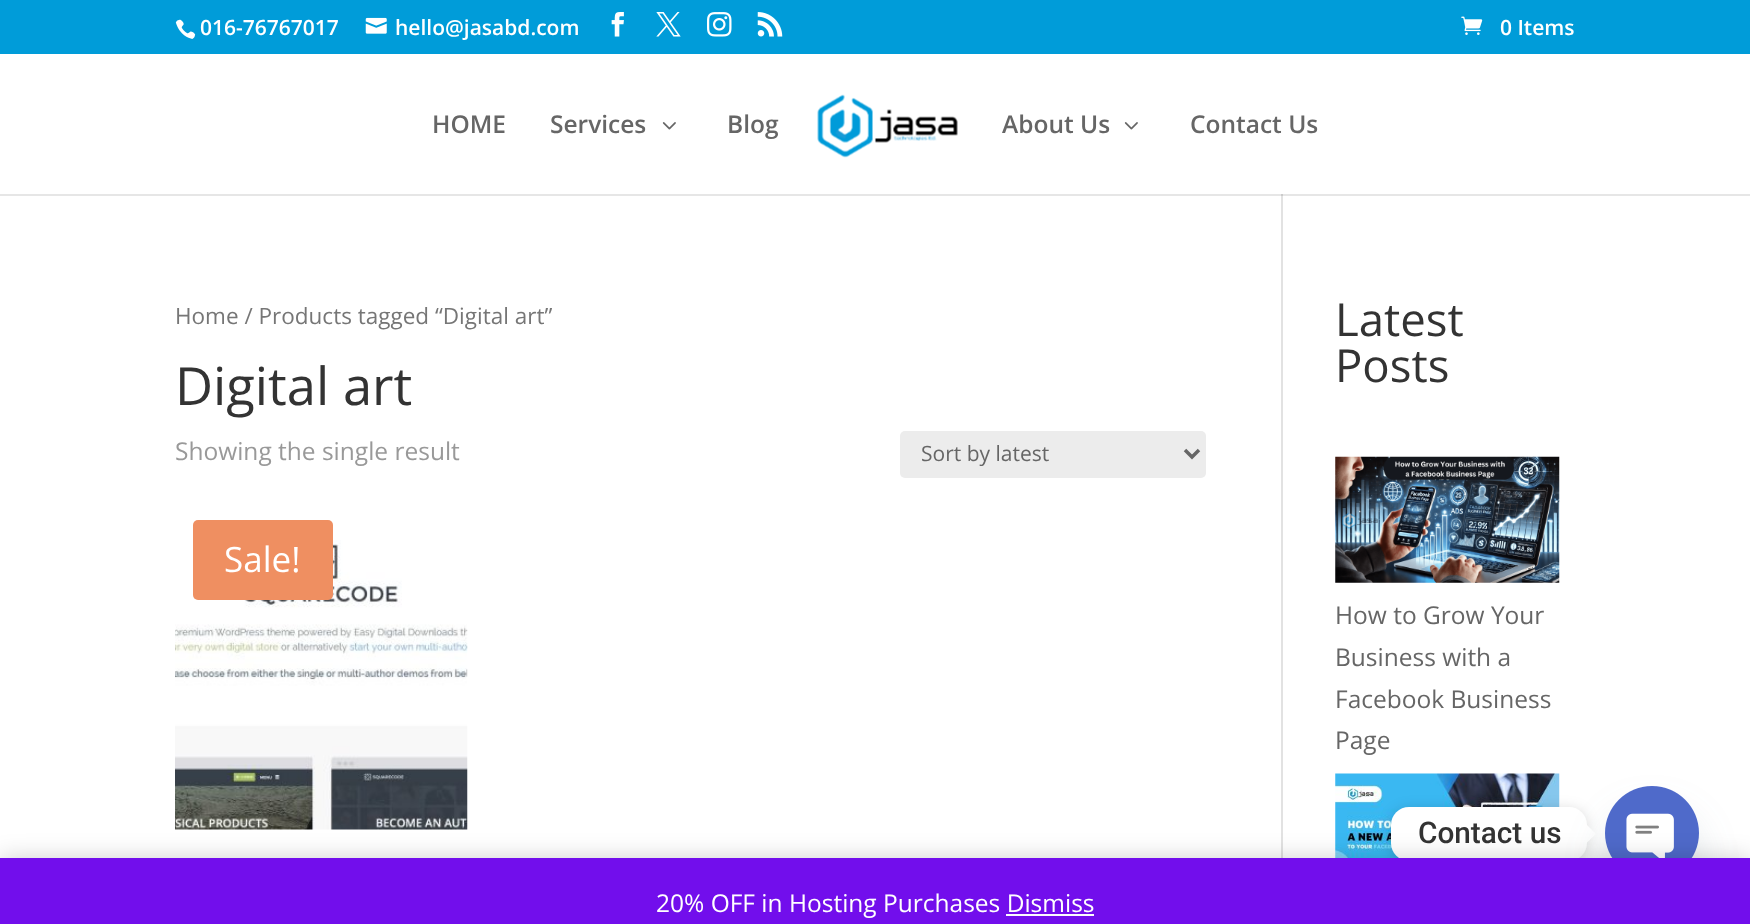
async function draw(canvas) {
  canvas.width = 1750;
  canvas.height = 924;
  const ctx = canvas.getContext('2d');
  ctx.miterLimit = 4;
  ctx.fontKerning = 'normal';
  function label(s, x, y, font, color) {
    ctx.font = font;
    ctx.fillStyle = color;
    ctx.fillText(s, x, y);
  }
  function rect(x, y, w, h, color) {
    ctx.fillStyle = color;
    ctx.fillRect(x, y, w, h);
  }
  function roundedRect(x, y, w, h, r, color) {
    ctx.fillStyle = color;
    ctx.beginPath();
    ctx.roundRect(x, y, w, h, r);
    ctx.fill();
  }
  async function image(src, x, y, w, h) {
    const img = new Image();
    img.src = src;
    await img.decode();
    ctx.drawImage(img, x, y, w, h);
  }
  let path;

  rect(0, 0, 1750, 924, '#009cd9');
  await image('assets/img1.png', 175, 19, 21, 20);
  label('016-76767017', 200, 35, '600 21px Open Sans', '#fff');
  await image('assets/img2.png', 365, 17, 22, 17);
  label('hello@jasabd.com', 395, 35, '600 21px Open Sans', '#fff');
  await image('assets/img3.png', 611, 12, 13, 25);
  await image('assets/img4.png', 656, 12, 25, 25);
  await image('assets/img5.png', 707, 12, 25, 25);
  await image('assets/img6.png', 757, 12, 26, 25);
  await image('assets/img7.png', 1461, 16, 22, 19);
  label('0 Items', 1500, 35, '600 21px Open Sans', '#fff');
  rect(0, 54, 1750, 140, '#fff');
  label('HOME', 432, 133, '600 24.5px Open Sans', '#666');
  label('Services', 550, 133, '600 24.5px Open Sans', '#666');
  await image('assets/img8.png', 662, 122, 14, 8);
  label('Blog', 727, 133, '600 24.5px Open Sans', '#666');
  await image('assets/img9.png', 817, 94, 141, 64);
  label('About Us', 1002, 133, '600 24.5px Open Sans', '#666');
  await image('assets/img8.png', 1124, 122, 14, 8);
  label('Contact Us', 1190, 133, '600 24.5px Open Sans', '#666');
  rect(0, 196, 1750, 662, '#fff');
  rect(0, 194, 1750, 2, '#e6e6e6');
  rect(1281, 194, 2, 664, '#e2e2e2');
  rect(1281, 194, 2, 2, '#cbcbcb');
  label('Home / Products tagged “Digital art”', 175, 324, '22.5px Open Sans', '#767676');
  label('Digital art', 175, 405, '52.5px Open Sans', '#333');
  label('Showing the single result', 175, 460, '24.5px Open Sans', '#999');
  roundedRect(900, 431, 306, 47, 5, '#ececec');
  path = new Path2D('M1185 450L1192 457L1199 450');
  ctx.strokeStyle = '#666';
  ctx.lineWidth = 3.5;
  ctx.stroke(path);
  label('Sort by latest', 921, 461, '21px Open Sans', '#666');
  await image('assets/img10.png', 175, 540, 293, 290);
  roundedRect(193, 520, 140, 80, 5, '#ef8f61');
  label('Sale!', 224, 572, '35px Open Sans', '#fff');
  label('Latest', 1335, 336, '45.5px Open Sans', '#333');
  label('Posts', 1335, 382, '45.5px Open Sans', '#333');
  await image('assets/img11.png', 1335, 456, 225, 127);
  label('How to Grow Your', 1335, 624, '24.5px Open Sans', '#666');
  label('Business with a', 1335, 666, '24.5px Open Sans', '#666');
  label('Facebook Business', 1335, 708, '24.5px Open Sans', '#666');
  label('Page', 1335, 749, '24.5px Open Sans', '#666');
  await image('assets/img12.png', 1335, 773, 225, 85);
  ctx.fillStyle = '#00000026';
  ctx.filter = 'blur(7px)';
  ctx.beginPath();
  ctx.roundRect(1391, 809, 196, 54, 18);
  ctx.fill();
  ctx.filter = 'none';
  roundedRect(1391, 807, 196, 54, 18, '#fff');
  label('Contact us', 1418, 843, '500 29.75px Roboto', '#333');
  ctx.fillStyle = '#fff';
  path = new Path2D('M1587 842.5V825L1596 834Z');
  ctx.fill(path);
  ctx.fillStyle = '#49687e29';
  ctx.filter = 'blur(21px)';
  ctx.beginPath();
  ctx.roundRect(1605, 814, 94, 94, 47);
  ctx.fill();
  ctx.filter = 'none';
  await image('assets/img13.png', 1605, 786, 94, 72);
  ctx.fillStyle = '#00000033';
  ctx.filter = 'blur(12px)';
  ctx.beginPath();
  ctx.rect(0, 859, 1750, 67);
  ctx.fill();
  ctx.filter = 'none';
  rect(0, 858, 1750, 66, '#720eec');
  label('20% OFF in Hosting Purchases Dismiss', 656, 912, '24.5px Open Sans', '#fff');
  rect(1006, 914, 88, 2, '#fcfbfe');
}

draw(document.querySelector('canvas'));
